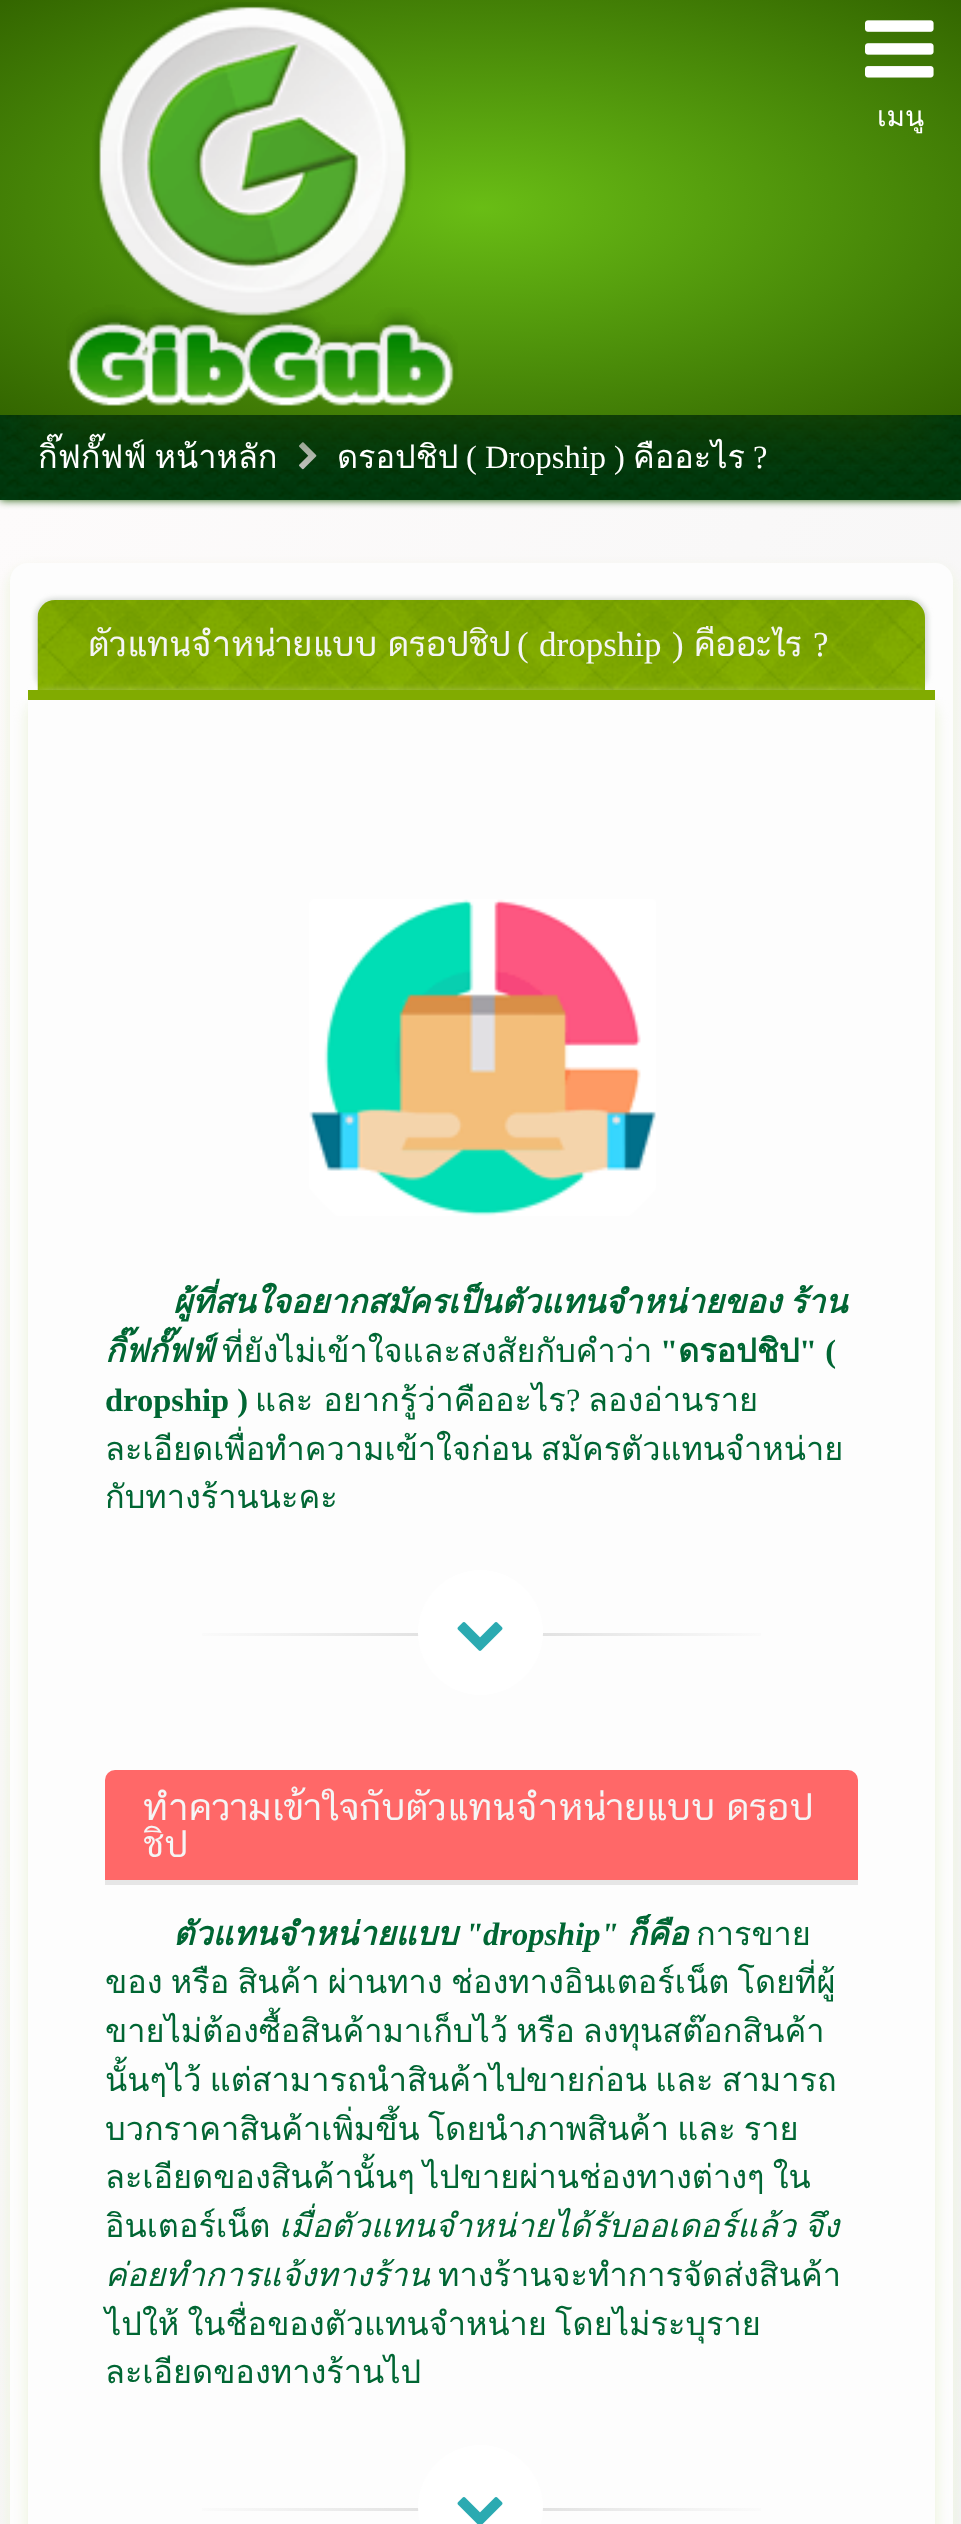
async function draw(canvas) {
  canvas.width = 961;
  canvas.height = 2524;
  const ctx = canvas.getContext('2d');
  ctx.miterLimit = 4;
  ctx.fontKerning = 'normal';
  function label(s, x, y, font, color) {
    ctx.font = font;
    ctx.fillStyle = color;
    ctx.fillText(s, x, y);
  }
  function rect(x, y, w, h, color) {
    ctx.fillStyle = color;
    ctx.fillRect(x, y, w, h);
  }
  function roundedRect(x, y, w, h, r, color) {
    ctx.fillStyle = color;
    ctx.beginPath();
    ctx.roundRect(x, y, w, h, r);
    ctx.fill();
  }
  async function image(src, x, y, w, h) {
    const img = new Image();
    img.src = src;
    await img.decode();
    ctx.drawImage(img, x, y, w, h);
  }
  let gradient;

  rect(0, 0, 961, 2524, '#fff');
  gradient = ctx.createLinearGradient(-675, 1670, 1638, 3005);
  gradient.addColorStop(0, '#fdfbfb');
  gradient.addColorStop(0.5, '#f5f5f5');
  gradient.addColorStop(1, '#ebedee');
  ctx.fillStyle = gradient;
  ctx.fillRect(0, 500, 961, 2024);
  ctx.fillStyle = '#185801';
  ctx.filter = 'blur(4px)';
  ctx.beginPath();
  ctx.rect(0, 415, 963, 85);
  ctx.fill();
  ctx.filter = 'none';
  await image('assets/img3.png', 0, 415, 961, 85);
  await image('assets/img4.png', 299, 442, 18, 28);
  ctx.fillStyle = '#1a4501';
  ctx.filter = 'blur(34px)';
  ctx.beginPath();
  ctx.rect(33, 73, 897, 350);
  ctx.fill();
  ctx.filter = 'none';
  gradient = ctx.createRadialGradient(481, 483.44, 0, 481, 483.44, 681);
  gradient.addColorStop(0, '#69bd15');
  gradient.addColorStop(1, '#360');
  ctx.fillStyle = gradient;
  ctx.beginPath();
  ctx.rect(0, 0, 961, 415);
  ctx.save();
  ctx.clip();
  ctx.scale(1, 293 / 681);
  ctx.fillRect(0, 0, 961, 5867);
  ctx.restore();
  await image('assets/img1.png', 66, 2, 392, 404);
  await image('assets/img2.png', 865, 20, 69, 58);
  label('เมนู', 877, 126, '28px Loma', '#fff');
  ctx.wordSpacing = '-2.75px';
  label('กิ๊ฟกั๊ฟฟ์ หน้าหลัก', 38, 468, '32.5px Loma', '#fff');
  ctx.wordSpacing = '0px';
  label('ดรอปชิป', 337, 468, '32.5px Loma', '#fff');
  label('( Dropship )', 466, 468, '32.5px Liberation Serif', '#fff');
  label('คืออะไร', 633, 468, '32.5px Loma', '#fff');
  label('?', 753, 468, '32.5px Liberation Serif', '#fff');
  ctx.fillStyle = '#eff5e2';
  ctx.filter = 'blur(6px)';
  ctx.beginPath();
  ctx.roundRect(8, 568, 947, 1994, 20);
  ctx.fill();
  ctx.filter = 'none';
  roundedRect(10, 563, 943, 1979, 18, '#fdfdfd');
  ctx.fillStyle = '#d7dbd7';
  ctx.filter = 'blur(2.5px)';
  ctx.beginPath();
  ctx.roundRect(35, 598, 893, 95, 20);
  ctx.fill();
  ctx.filter = 'none';
  await image('assets/img5.png', 37, 600, 888, 90);
  label('ตัวแทนจำหน่ายแบบ ดรอปชิป', 88, 656, '35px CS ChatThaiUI', '#f5f5f5');
  label('(', 517, 656, '35px Liberation Serif', '#f5f5f5');
  label('dropship', 539, 656, '35px Liberation Serif', '#f5f5f5');
  label(')', 672, 656, '35px Liberation Serif', '#f5f5f5');
  label('คืออะไร', 694, 656, '35px CS ChatThaiUI', '#f5f5f5');
  label('?', 813, 656, '35px Liberation Serif', '#f5f5f5');
  ctx.fillStyle = '#eff5e2';
  ctx.filter = 'blur(6px)';
  ctx.beginPath();
  ctx.roundRect(25, 695, 913, 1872, 25);
  ctx.fill();
  ctx.filter = 'none';
  rect(28, 700, 907, 1824, '#fdfdfd');
  rect(28, 690, 907, 10, '#81ab00');
  await image('assets/img6.png', 309, 899, 347, 317);
  ctx.wordSpacing = '-2.75px';
  label('ผู้ที่สนใจอยากสมัครเป็นตัวแทนจำหน่ายของ ร้าน', 173, 1313, 'italic bold 32.5px Loma', '#063');
  ctx.wordSpacing = '0px';
  label('กิ๊ฟกั๊ฟฟ์', 105, 1362, 'italic bold 32.5px Loma', '#063');
  label('ที่ยังไม่เข้าใจและสงสัยกับคำว่า', 222, 1362, '32.5px Loma', '#063');
  label('"', 660, 1362, 'bold 32.5px Liberation Serif', '#063');
  label('ดรอปชิป', 678, 1362, 'bold 32.5px Loma', '#063');
  label('" (', 799, 1362, 'bold 32.5px Liberation Serif', '#063');
  label('dropship )', 105, 1411, 'bold 32.5px Liberation Serif', '#063');
  ctx.wordSpacing = '-1px';
  label('และ อยากรู้ว่าคืออะไร', 255, 1411, '32.5px Loma', '#063');
  ctx.wordSpacing = '0px';
  label('?', 566, 1411, '32.5px Liberation Serif', '#063');
  label('ลองอ่านราย', 588, 1411, '32.5px Loma', '#063');
  ctx.wordSpacing = '-2.75px';
  label('ละเอียดเพื่อทำความเข้าใจก่อน สมัครตัวแทนจำหน่าย', 105, 1460, '32.5px Loma', '#063');
  ctx.wordSpacing = '0px';
  label('กับทางร้านนะคะ', 105, 1508, '32.5px Loma', '#063');
  gradient = ctx.createLinearGradient(180, 1634, 783, 1634);
  gradient.addColorStop(0, '#fdfdfd');
  gradient.addColorStop(0.5, '#dbdbdb');
  gradient.addColorStop(1, '#fdfdfd');
  ctx.fillStyle = gradient;
  ctx.fillRect(202, 1633, 559, 3);
  ctx.fillStyle = '#fff';
  ctx.beginPath();
  ctx.arc(480.5, 1632.5, 62.5, 0, 2 * Math.PI);
  ctx.fill();
  await image('assets/img7.png', 457, 1622, 46, 29);
  ctx.fillStyle = '#ff6868';
  ctx.beginPath();
  ctx.roundRect(105, 1770, 753, 115, [10, 10, 0, 0]);
  ctx.fill();
  rect(105, 1880, 753, 5, '#e6e6e6');
  label('ทำความเข้าใจกับตัวแทนจำหน่ายแบบ ดรอป', 143, 1820, '37.5px CS ChatThaiUI', '#f5f5f5');
  label('ชิป', 143, 1857, '37.5px CS ChatThaiUI', '#f5f5f5');
  label('ตัวแทนจำหน่ายแบบ', 173, 1945, 'italic bold 32.5px Loma', '#063');
  label('"dropship"', 465, 1945, 'italic bold 32.5px Liberation Serif', '#063');
  label('ก็คือ', 627, 1945, 'italic bold 32.5px Loma', '#063');
  label('การขาย', 696, 1945, '32.5px Loma', '#063');
  ctx.wordSpacing = '-2.75px';
  label('ของ หรือ สินค้า ผ่านทาง ช่องทางอินเตอร์เน็ต โดยที่ผู้', 105, 1993, '32.5px Loma', '#063');
  label('ขายไม่ต้องซื้อสินค้ามาเก็บไว้ หรือ ลงทุนสต๊อกสินค้า', 105, 2042, '32.5px Loma', '#063');
  label('นั้นๆไว้ แต่สามารถนำสินค้าไปขายก่อน และ สามารถ', 105, 2091, '32.5px Loma', '#063');
  label('บวกราคาสินค้าเพิ่มขึ้น โดยนำภาพสินค้า และ ราย', 105, 2140, '32.5px Loma', '#063');
  label('ละเอียดของสินค้านั้นๆ ไปขายผ่านช่องทางต่างๆ ใน', 105, 2188, '32.5px Loma', '#063');
  ctx.wordSpacing = '0px';
  label('อินเตอร์เน็ต', 105, 2237, '32.5px Loma', '#063');
  ctx.wordSpacing = '-2.75px';
  label('เมื่อตัวแทนจำหน่ายได้รับออเดอร์แล้ว จึง', 279, 2237, 'italic 32.5px Loma', '#063');
  ctx.wordSpacing = '0px';
  label('ค่อยทำการแจ้งทางร้าน', 105, 2286, 'italic 32.5px Loma', '#063');
  label('ทางร้านจะทำการจัดส่งสินค้า', 438, 2286, '32.5px Loma', '#063');
  ctx.wordSpacing = '-2.75px';
  label('ไปให้ ในชื่อของตัวแทนจำหน่าย โดยไม่ระบุราย', 105, 2335, '32.5px Loma', '#063');
  ctx.wordSpacing = '0px';
  label('ละเอียดของทางร้านไป', 105, 2383, '32.5px Loma', '#063');
  gradient = ctx.createLinearGradient(180, 2509, 783, 2509);
  gradient.addColorStop(0, '#fdfdfd');
  gradient.addColorStop(0.5, '#dbdbdb');
  gradient.addColorStop(1, '#fdfdfd');
  ctx.fillStyle = gradient;
  ctx.fillRect(202, 2508, 559, 3);
  ctx.fillStyle = '#fff';
  ctx.beginPath();
  ctx.arc(480.5, 2507.5, 62.5, 0, 2 * Math.PI);
  ctx.fill();
  await image('assets/img8.png', 457, 2497, 46, 27);
}

draw(document.querySelector('canvas'));
